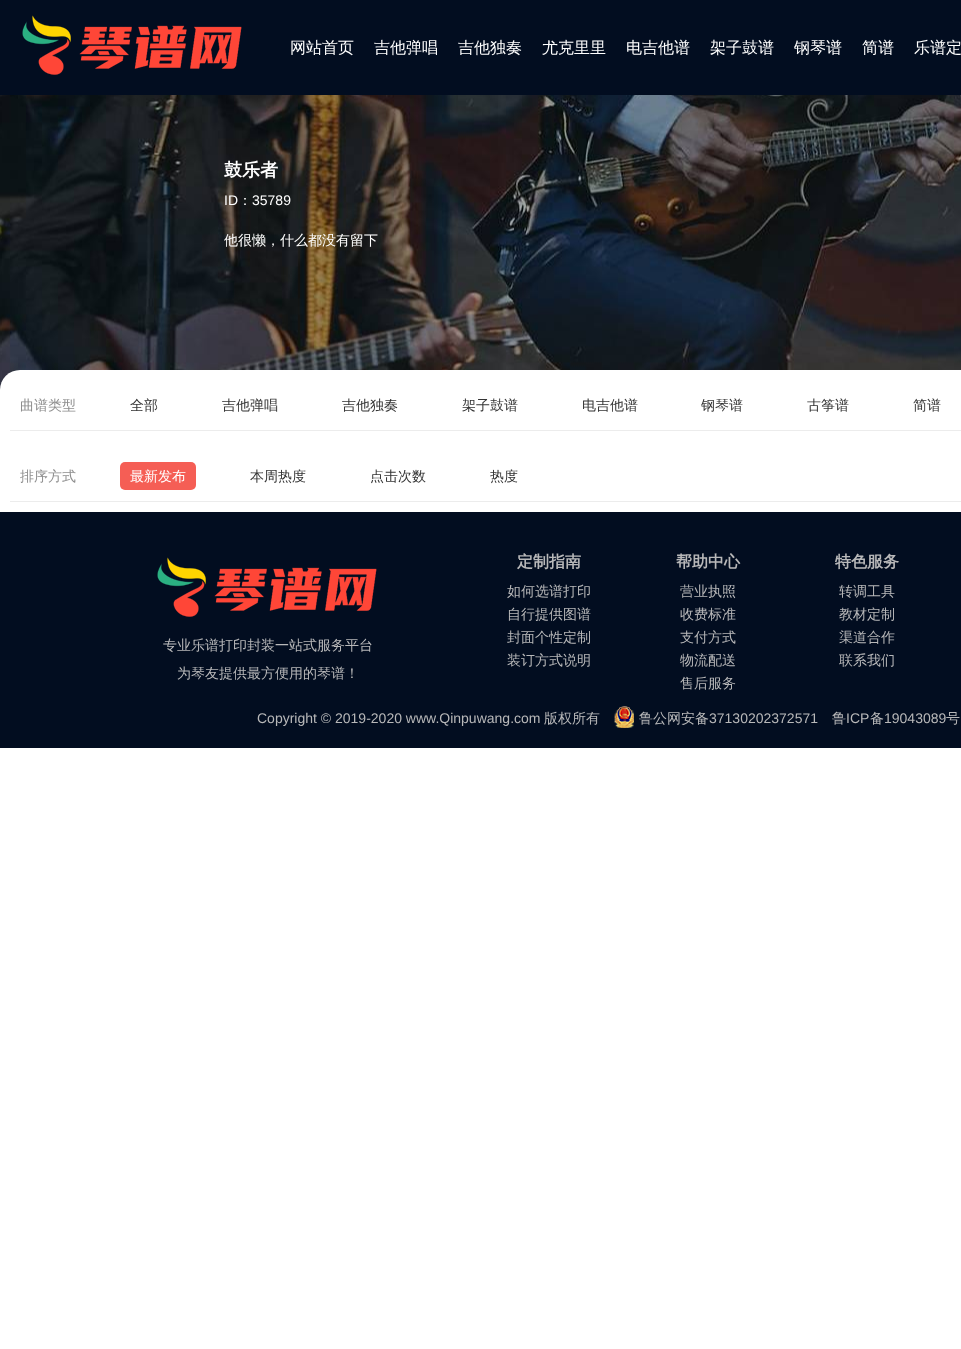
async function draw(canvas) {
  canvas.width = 961;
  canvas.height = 1349;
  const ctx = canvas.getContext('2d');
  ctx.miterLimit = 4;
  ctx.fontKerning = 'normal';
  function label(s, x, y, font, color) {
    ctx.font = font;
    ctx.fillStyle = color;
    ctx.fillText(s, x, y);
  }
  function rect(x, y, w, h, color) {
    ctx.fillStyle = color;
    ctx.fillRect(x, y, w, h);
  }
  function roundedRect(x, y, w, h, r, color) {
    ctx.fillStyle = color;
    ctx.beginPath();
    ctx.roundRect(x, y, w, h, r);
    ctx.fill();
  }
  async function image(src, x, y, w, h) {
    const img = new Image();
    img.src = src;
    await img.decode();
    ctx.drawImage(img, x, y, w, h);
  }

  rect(0, 0, 961, 1349, '#fff');
  rect(0, 0, 961, 95, '#020d20');
  await image('assets/img1.png', 22, 15, 220, 60);
  label('网站首页', 290, 53, '500 16px WenQuanYi Zen Hei', '#fff');
  label('吉他弹唱', 374, 53, '500 16px WenQuanYi Zen Hei', '#fff');
  label('吉他独奏', 458, 53, '500 16px WenQuanYi Zen Hei', '#fff');
  label('尤克里里', 542, 53, '500 16px WenQuanYi Zen Hei', '#fff');
  label('电吉他谱', 626, 53, '500 16px WenQuanYi Zen Hei', '#fff');
  label('架子鼓谱', 710, 53, '500 16px WenQuanYi Zen Hei', '#fff');
  label('钢琴谱', 794, 53, '500 16px WenQuanYi Zen Hei', '#fff');
  label('简谱', 862, 53, '500 16px WenQuanYi Zen Hei', '#fff');
  label('乐谱定', 914, 53, '500 16px WenQuanYi Zen Hei', '#fff');
  await image('assets/img2.png', 0, 95, 961, 295);
  label('鼓乐者', 224, 176, 'bold 18px WenQuanYi Zen Hei', '#fff');
  label('ID', 224, 205, '14px Liberation Sans', '#fff');
  label('：', 238, 205, '500 14px WenQuanYi Zen Hei', '#fff');
  label('35789', 252, 205, '14px Liberation Sans', '#fff');
  label('他很懒，什么都没有留下', 224, 245, '500 14px WenQuanYi Zen Hei', '#fff');
  roundedRect(0, 370, 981, 142, 20, '#fff');
  rect(10, 430, 951, 1, '#ececec');
  label('曲谱类型', 20, 410, '500 14px WenQuanYi Zen Hei', '#8e8e8e');
  label('全部', 130, 410, '500 14px WenQuanYi Zen Hei', '#333');
  label('吉他弹唱', 222, 410, '500 14px WenQuanYi Zen Hei', '#333');
  label('吉他独奏', 342, 410, '500 14px WenQuanYi Zen Hei', '#333');
  label('架子鼓谱', 462, 410, '500 14px WenQuanYi Zen Hei', '#333');
  label('电吉他谱', 582, 410, '500 14px WenQuanYi Zen Hei', '#333');
  label('钢琴谱', 701, 410, '500 14px WenQuanYi Zen Hei', '#333');
  label('古筝谱', 807, 410, '500 14px WenQuanYi Zen Hei', '#333');
  label('简谱', 913, 410, '500 14px WenQuanYi Zen Hei', '#333');
  rect(10, 501, 951, 1, '#ececec');
  label('排序方式', 20, 481, '500 14px WenQuanYi Zen Hei', '#8e8e8e');
  roundedRect(120, 462, 76, 28, 5, '#f55e55');
  label('最新发布', 130, 481, '500 14px WenQuanYi Zen Hei', '#fff');
  label('本周热度', 250, 481, '500 14px WenQuanYi Zen Hei', '#333');
  label('点击次数', 370, 481, '500 14px WenQuanYi Zen Hei', '#333');
  label('热度', 490, 481, '500 14px WenQuanYi Zen Hei', '#333');
  rect(0, 512, 961, 236, '#020d20');
  await image('assets/img1.png', 157, 557, 220, 60);
  label('专业乐谱打印封装一站式服务平台', 163, 650, '500 14px WenQuanYi Zen Hei', '#b8b8b9');
  label('为琴友提供最方便用的琴谱！', 177, 678, '500 14px WenQuanYi Zen Hei', '#b8b8b9');
  label('定制指南', 517, 567, 'bold 16px WenQuanYi Zen Hei', '#b8b8b9');
  label('如何选谱打印', 507, 596, '500 14px WenQuanYi Zen Hei', '#b8b8b9');
  label('自行提供图谱', 507, 619, '500 14px WenQuanYi Zen Hei', '#b8b8b9');
  label('封面个性定制', 507, 642, '500 14px WenQuanYi Zen Hei', '#b8b8b9');
  label('装订方式说明', 507, 665, '500 14px WenQuanYi Zen Hei', '#b8b8b9');
  label('帮助中心', 676, 567, 'bold 16px WenQuanYi Zen Hei', '#b8b8b9');
  label('营业执照', 680, 596, '500 14px WenQuanYi Zen Hei', '#b8b8b9');
  label('收费标准', 680, 619, '500 14px WenQuanYi Zen Hei', '#b8b8b9');
  label('支付方式', 680, 642, '500 14px WenQuanYi Zen Hei', '#b8b8b9');
  label('物流配送', 680, 665, '500 14px WenQuanYi Zen Hei', '#b8b8b9');
  label('售后服务', 680, 688, '500 14px WenQuanYi Zen Hei', '#b8b8b9');
  label('特色服务', 835, 567, 'bold 16px WenQuanYi Zen Hei', '#b8b8b9');
  label('转调工具', 839, 596, '500 14px WenQuanYi Zen Hei', '#b8b8b9');
  label('教材定制', 839, 619, '500 14px WenQuanYi Zen Hei', '#b8b8b9');
  label('渠道合作', 839, 642, '500 14px WenQuanYi Zen Hei', '#b8b8b9');
  label('联系我们', 839, 665, '500 14px WenQuanYi Zen Hei', '#b8b8b9');
  label('Copyright © 2019-2020 www.Qinpuwang.com', 257, 723, '14px Liberation Sans', '#b8b8b9');
  label('版权所有', 544, 723, '500 14px WenQuanYi Zen Hei', '#b8b8b9');
  await image('assets/img3.png', 614, 706, 20, 22);
  label('鲁公网安备', 639, 723, '500 14px WenQuanYi Zen Hei', '#b8b8b9');
  label('37130202372571', 709, 723, '14px Liberation Sans', '#b8b8b9');
  label('鲁', 832, 723, '500 14px WenQuanYi Zen Hei', '#b8b8b9');
  label('ICP', 846, 723, '14px Liberation Sans', '#b8b8b9');
  label('备', 870, 723, '500 14px WenQuanYi Zen Hei', '#b8b8b9');
  label('19043089', 884, 723, '14px Liberation Sans', '#b8b8b9');
  label('号', 946, 723, '500 14px WenQuanYi Zen Hei', '#b8b8b9');
}

draw(document.querySelector('canvas'));
